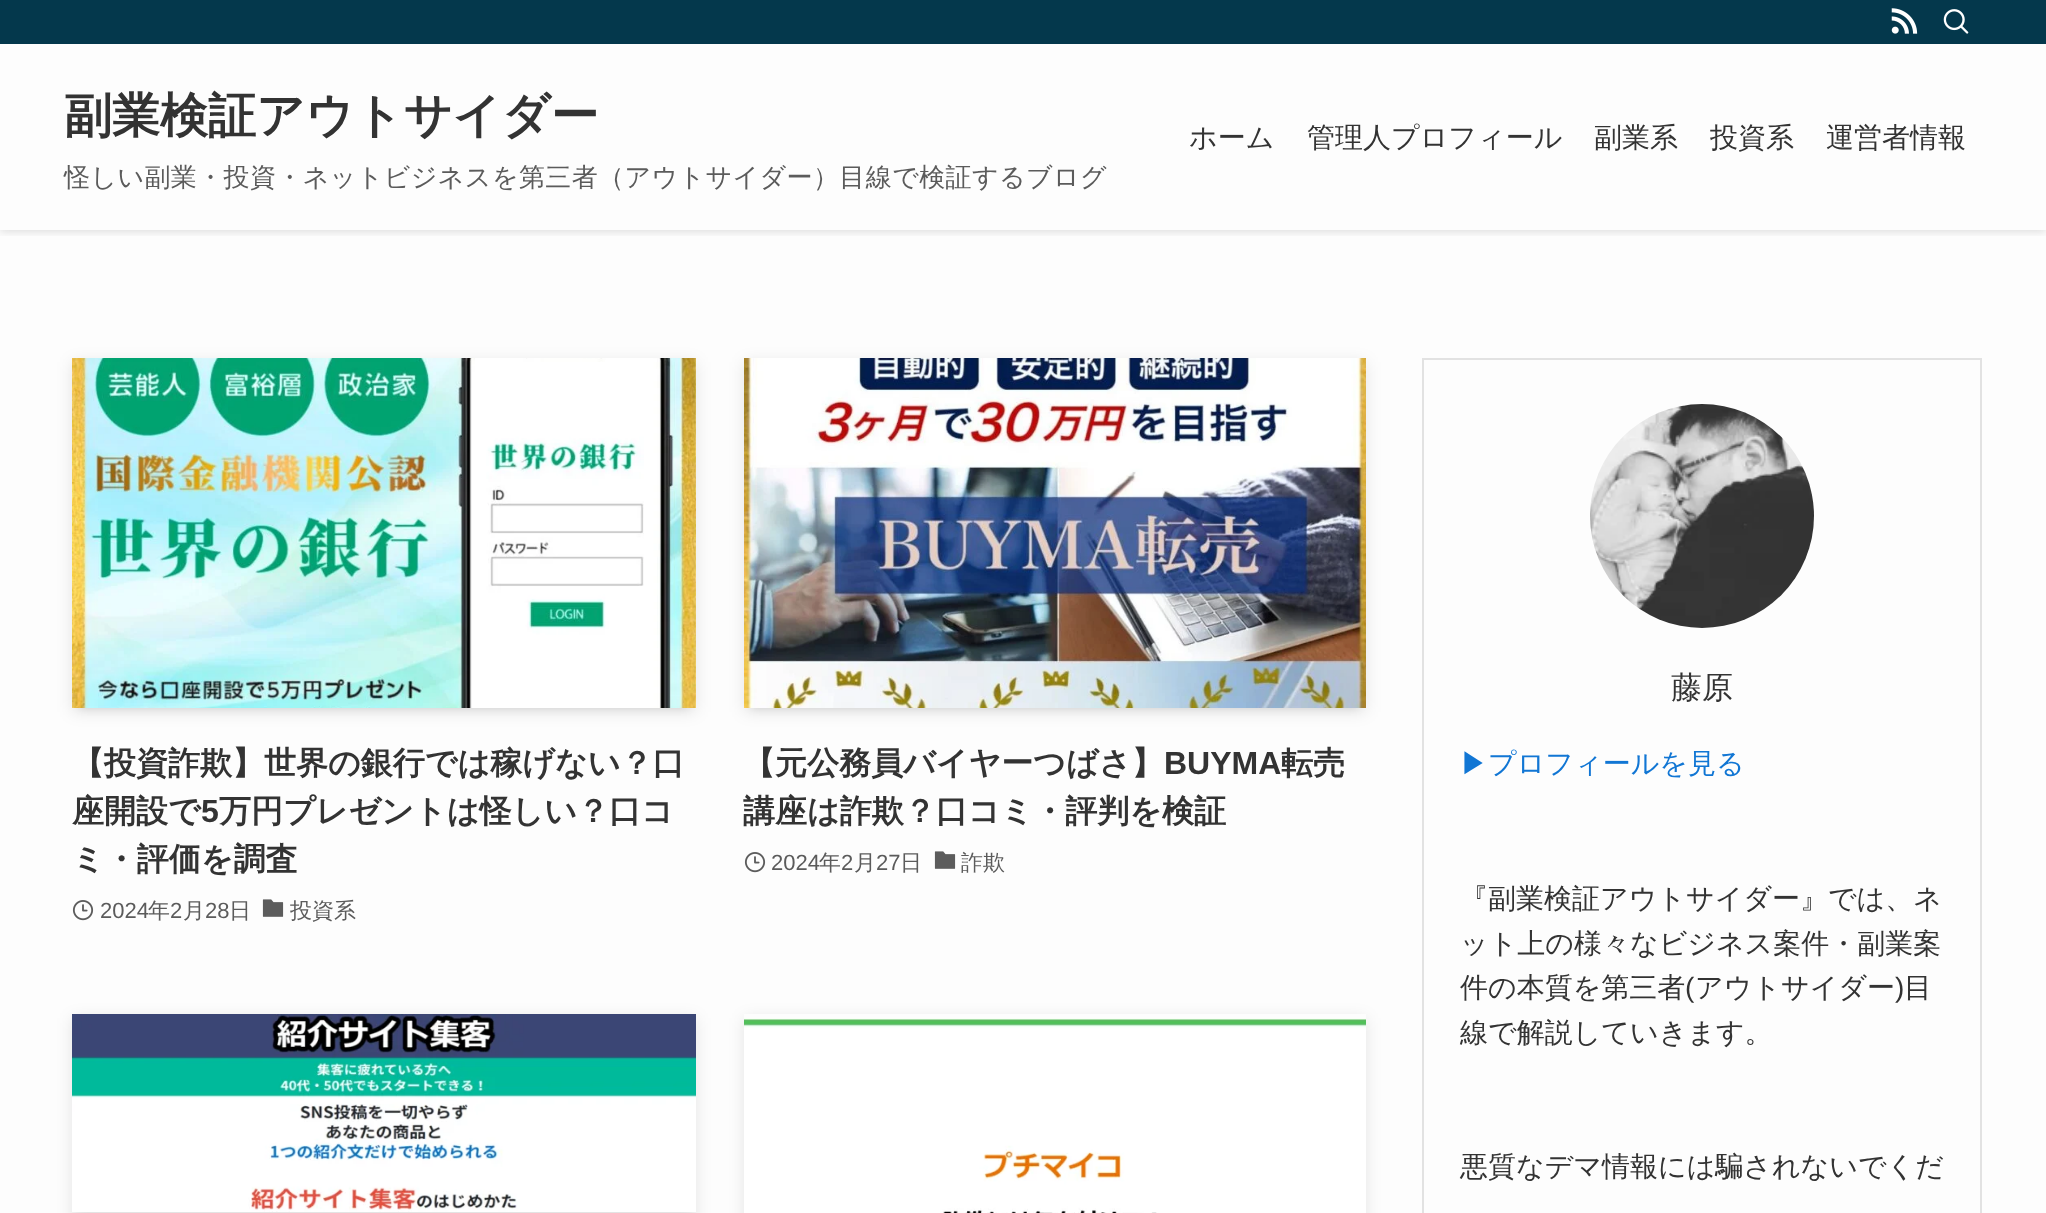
async function draw(canvas) {
  canvas.width = 2046;
  canvas.height = 1213;
  const ctx = canvas.getContext('2d');
  ctx.miterLimit = 4;
  ctx.fontKerning = 'normal';
  function label(s, x, y, font, color) {
    ctx.font = font;
    ctx.fillStyle = color;
    ctx.fillText(s, x, y);
  }
  function rect(x, y, w, h, color) {
    ctx.fillStyle = color;
    ctx.fillRect(x, y, w, h);
  }
  async function image(src, x, y, w, h) {
    const img = new Image();
    img.src = src;
    await img.decode();
    ctx.drawImage(img, x, y, w, h);
  }
  let path;

  rect(0, 0, 2046, 1213, '#fdfdfd');
  ctx.save();
  ctx.beginPath();
  ctx.rect(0, 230, 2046, 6);
  ctx.clip();
  ctx.fillStyle = '#0000001f';
  ctx.filter = 'blur(4px)';
  ctx.beginPath();
  ctx.rect(0, 2, 2046, 230);
  ctx.fill();
  ctx.filter = 'none';
  ctx.restore();
  rect(0, 0, 2046, 44, '#04384c');
  await image('assets/img1.png', 1891, 8, 27, 26);
  await image('assets/img2.png', 1943, 9, 26, 25);
  label('副業検証アウトサイダー', 64, 132, 'bold 48px WenQuanYi Zen Hei', '#333');
  ctx.letterSpacing = '0.4px';
  label('怪しい副業・投資・ネットビジネスを第三者（アウトサイダー）目線で検証するブログ', 64, 186, '500 26px WenQuanYi Zen Hei', '#5b5b5b');
  ctx.letterSpacing = '0px';
  label('ホーム', 1189, 147, '500 28px WenQuanYi Zen Hei', '#333');
  label('管理人プロフィール', 1307, 147, '500 28px WenQuanYi Zen Hei', '#333');
  label('副業系', 1594, 147, '500 28px WenQuanYi Zen Hei', '#333');
  label('投資系', 1710, 147, '500 28px WenQuanYi Zen Hei', '#333');
  label('運営者情報', 1826, 147, '500 28px WenQuanYi Zen Hei', '#333');
  ctx.fillStyle = '#0000001a';
  ctx.filter = 'blur(4px)';
  ctx.beginPath();
  ctx.rect(80, 374, 608, 334);
  ctx.fill();
  ctx.filter = 'none';
  ctx.filter = 'blur(8px)';
  ctx.beginPath();
  ctx.rect(72, 362, 624, 350);
  ctx.fill();
  ctx.filter = 'none';
  await image('assets/img3.png', 72, 358, 624, 350);
  label('【投資詐欺】世界の銀行では稼げない？口', 72, 774, 'bold 32px WenQuanYi Zen Hei', '#333');
  label('座開設で', 72, 822, 'bold 32px WenQuanYi Zen Hei', '#333');
  label('5', 201, 822, 'bold 32px Liberation Sans', '#333');
  label('万円プレゼントは怪しい？口コ', 219, 822, 'bold 32px WenQuanYi Zen Hei', '#333');
  label('ミ・評価を調査', 72, 870, 'bold 32px WenQuanYi Zen Hei', '#333');
  await image('assets/img4.png', 72, 900, 22, 21);
  label('2024', 100, 918, '22px Liberation Sans', '#5b5b5b');
  label('年', 148, 918, '500 22px WenQuanYi Zen Hei', '#5b5b5b');
  label('2', 170, 918, '22px Liberation Sans', '#5b5b5b');
  label('月', 183, 918, '500 22px WenQuanYi Zen Hei', '#5b5b5b');
  label('28', 205, 918, '22px Liberation Sans', '#5b5b5b');
  label('日', 229, 918, '500 22px WenQuanYi Zen Hei', '#5b5b5b');
  await image('assets/img5.png', 262, 899, 22, 18);
  label('投資系', 290, 918, '500 22px WenQuanYi Zen Hei', '#5b5b5b');
  ctx.fillStyle = '#0000001a';
  ctx.filter = 'blur(4px)';
  ctx.beginPath();
  ctx.rect(752, 374, 606, 334);
  ctx.fill();
  ctx.filter = 'none';
  ctx.filter = 'blur(8px)';
  ctx.beginPath();
  ctx.rect(744, 362, 622, 350);
  ctx.fill();
  ctx.filter = 'none';
  await image('assets/img6.png', 744, 358, 622, 350);
  label('【元公務員バイヤーつばさ】', 743, 774, 'bold 32px WenQuanYi Zen Hei', '#333');
  label('BUYMA', 1164, 774, 'bold 32px Liberation Sans', '#333');
  label('転売', 1281, 774, 'bold 32px WenQuanYi Zen Hei', '#333');
  label('講座は詐欺？口コミ・評判を検証', 743, 822, 'bold 32px WenQuanYi Zen Hei', '#333');
  await image('assets/img4.png', 744, 852, 22, 21);
  label('2024', 771, 870, '22px Liberation Sans', '#5b5b5b');
  label('年', 819, 870, '500 22px WenQuanYi Zen Hei', '#5b5b5b');
  label('2', 841, 870, '22px Liberation Sans', '#5b5b5b');
  label('月', 854, 870, '500 22px WenQuanYi Zen Hei', '#5b5b5b');
  label('27', 876, 870, '22px Liberation Sans', '#5b5b5b');
  label('日', 900, 870, '500 22px WenQuanYi Zen Hei', '#5b5b5b');
  await image('assets/img5.png', 934, 851, 22, 18);
  label('詐欺', 961, 870, '500 22px WenQuanYi Zen Hei', '#5b5b5b');
  ctx.fillStyle = '#0000001a';
  ctx.filter = 'blur(8px)';
  ctx.beginPath();
  ctx.rect(72, 1018, 624, 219);
  ctx.fill();
  ctx.filter = 'none';
  await image('assets/img7.png', 72, 1014, 624, 198);
  ctx.save();
  path = new Path2D('M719 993H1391V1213H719ZM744 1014H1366V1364H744Z');
  ctx.clip(path, 'evenodd');
  ctx.filter = 'blur(8px)';
  ctx.beginPath();
  ctx.rect(744, 1018, 622, 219);
  ctx.fill();
  ctx.filter = 'none';
  ctx.restore();
  await image('assets/img8.png', 744, 1018, 622, 195);
  ctx.strokeStyle = '#e2e2e2';
  ctx.lineWidth = 2;
  ctx.strokeRect(1423, 359, 558, 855);
  await image('assets/img9.png', 1590, 404, 224, 224);
  label('藤原', 1671, 698, '500 31px WenQuanYi Zen Hei', '#333');
  label('▶︎プロフィールを見る', 1460, 773, '500 28px WenQuanYi Zen Hei', '#1176d4');
  label('『副業検証アウトサイダー』では、ネ', 1460, 908, '500 28px WenQuanYi Zen Hei', '#333');
  label('ット上の様々なビジネス案件・副業案', 1460, 953, '500 28px WenQuanYi Zen Hei', '#333');
  label('件の本質を第三者', 1460, 997, '500 28px WenQuanYi Zen Hei', '#333');
  label('(', 1685, 997, '28px Liberation Sans', '#333');
  label('アウトサイダー', 1695, 997, '500 28px WenQuanYi Zen Hei', '#333');
  label(')', 1895, 997, '28px Liberation Sans', '#333');
  label('目', 1904, 997, '500 28px WenQuanYi Zen Hei', '#333');
  label('線で解説していきます。', 1460, 1042, '500 28px WenQuanYi Zen Hei', '#333');
  label('悪質なデマ情報には騙されないでくだ', 1460, 1176, '500 28px WenQuanYi Zen Hei', '#333');
}

draw(document.querySelector('canvas'));
